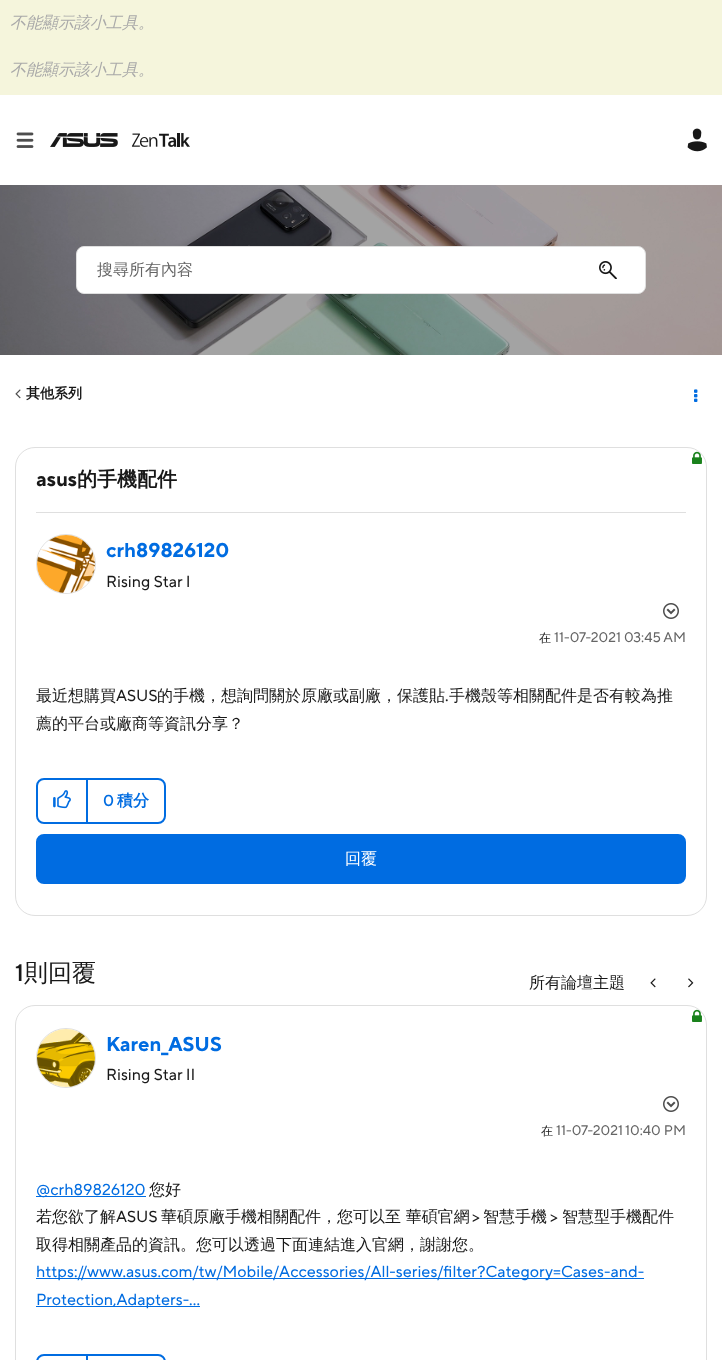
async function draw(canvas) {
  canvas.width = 722;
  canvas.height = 1360;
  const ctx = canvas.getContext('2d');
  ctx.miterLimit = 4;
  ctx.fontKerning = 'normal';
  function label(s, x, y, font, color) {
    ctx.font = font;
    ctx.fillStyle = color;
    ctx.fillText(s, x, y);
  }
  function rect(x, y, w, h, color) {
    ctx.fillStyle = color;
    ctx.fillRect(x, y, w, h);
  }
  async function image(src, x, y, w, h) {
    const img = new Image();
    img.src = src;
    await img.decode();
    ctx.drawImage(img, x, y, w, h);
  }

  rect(0, 0, 722, 1360, '#fff');
  rect(0, 0, 722, 95, '#f5f5dc');
  label('不能顯示該小工具。', 10, 28, 'italic 500 16px WenQuanYi Zen Hei', '#a9a9a9');
  label('不能顯示該小工具。', 10, 75, 'italic 500 16px WenQuanYi Zen Hei', '#a9a9a9');
  await image('assets/img1.png', 16, 132, 18, 16);
  await image('assets/img2.png', 50, 133, 140, 14);
  await image('assets/img3.png', 687, 128, 20, 24);
  await image('assets/img4.png', 0, 185, 722, 170);
  ctx.fillStyle = '#fff';
  ctx.beginPath();
  ctx.roundRect(76.5, 246.5, 569, 47, 7.5);
  ctx.fill();
  ctx.strokeStyle = '#dfdfdf';
  ctx.stroke();
  label('搜尋所有內容', 97, 275, '500 16px WenQuanYi Zen Hei', '#656565');
  await image('assets/img5.png', 599, 261, 18, 18);
  await image('assets/img6.png', 15, 389, 6, 10);
  label('其他系列', 26, 398, 'bold 14px WenQuanYi Zen Hei', '#181818');
  await image('assets/img7.png', 694, 389, 4, 13);
  ctx.beginPath();
  ctx.roundRect(15.5, 447.5, 691, 468, 19.5);
  ctx.stroke();
  await image('assets/img8.png', 692, 451, 10, 13);
  rect(36, 512, 650, 1, '#dfdfdf');
  label('asus', 36, 486, 'bold 20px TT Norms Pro', '#181818');
  label('的手機配件', 77, 486, 'bold 20px WenQuanYi Zen Hei', '#181818');
  ctx.beginPath();
  ctx.arc(66, 564, 29.5, 0, 2 * Math.PI);
  ctx.stroke();
  await image('assets/img9.png', 37, 535, 58, 58);
  label('crh89826120', 106, 557, 'bold 20px TT Norms Pro', '#006ce1');
  label('Rising Star I', 106, 587, '16px TT Norms Pro', '#181818');
  await image('assets/img10.png', 663, 603, 16, 16);
  label('在', 539, 642, '500 12px WenQuanYi Zen Hei', '#181818');
  label('11-07-2021', 554, 642, '14px TT Norms Pro', '#656565');
  label('03:45 AM', 624, 642, '14px TT Norms Pro', '#656565');
  label('最近想購買', 36, 701, '500 16px WenQuanYi Zen Hei', '#181818');
  label('ASUS', 116, 701, '16px TT Norms Pro', '#181818');
  label('的手機，想詢問關於原廠或副廠，保護貼', 157, 701, '500 16px WenQuanYi Zen Hei', '#181818');
  label('.', 445, 701, '16px TT Norms Pro', '#181818');
  label('手機殼等相關配件是否有較為推', 449, 701, '500 16px WenQuanYi Zen Hei', '#181818');
  label('薦的平台或廠商等資訊分享？', 36, 729, '500 16px WenQuanYi Zen Hei', '#181818');
  ctx.beginPath();
  ctx.roundRect(37, 779, 128, 44, 7);
  ctx.strokeStyle = '#006ce1';
  ctx.lineWidth = 2;
  ctx.stroke();
  rect(86, 780, 2, 42, '#006ce1');
  await image('assets/img11.png', 53, 790, 18, 19);
  label('0', 103, 806, '500 16px TT Norms Pro', '#006ce1');
  label('積分', 117, 806, 'bold 16px WenQuanYi Zen Hei', '#006ce1');
  ctx.beginPath();
  ctx.roundRect(37, 835, 648, 48, 7);
  ctx.fill();
  ctx.stroke();
  label('回覆', 345, 864, '500 16px WenQuanYi Zen Hei', '#fff');
  label('1', 15, 981, '500 24px TT Norms Pro', '#181818');
  label('則回覆', 24, 981, '500 24px WenQuanYi Zen Hei', '#181818');
  label('所有論壇主題', 529, 988, '500 16px WenQuanYi Zen Hei', '#181818');
  await image('assets/img12.png', 650, 978, 6, 10);
  await image('assets/img13.png', 688, 978, 6, 10);
  ctx.beginPath();
  ctx.roundRect(15.5, 1005.5, 691, 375, 19.5);
  ctx.strokeStyle = '#dfdfdf';
  ctx.lineWidth = 1;
  ctx.stroke();
  await image('assets/img8.png', 692, 1009, 10, 13);
  ctx.beginPath();
  ctx.arc(66, 1058, 29.5, 0, 2 * Math.PI);
  ctx.stroke();
  await image('assets/img14.png', 37, 1029, 58, 58);
  label('Karen_ASUS', 106, 1051, 'bold 20px TT Norms Pro', '#006ce1');
  label('Rising Star II', 106, 1080, '16px TT Norms Pro', '#181818');
  await image('assets/img10.png', 663, 1096, 16, 16);
  label('在', 541, 1135, '500 12px WenQuanYi Zen Hei', '#181818');
  label('11-07-2021', 556, 1135, '14px TT Norms Pro', '#656565');
  label('10:40 PM', 625, 1135, '14px TT Norms Pro', '#656565');
  rect(36, 1196, 110, 1, '#006ce1');
  label('@crh89826120', 36, 1195, '16px TT Norms Pro', '#006ce1');
  label('您好', 149, 1195, '500 16px WenQuanYi Zen Hei', '#181818');
  label('若您欲了解', 36, 1222, '500 16px WenQuanYi Zen Hei', '#181818');
  label('ASUS', 116, 1222, '16px TT Norms Pro', '#181818');
  label('華碩原廠手機相關配件，您可以至 華碩官網', 161, 1222, '500 16px WenQuanYi Zen Hei', '#181818');
  label('>', 472, 1222, '16px TT Norms Pro', '#181818');
  label('智慧手機', 483, 1222, '500 16px WenQuanYi Zen Hei', '#181818');
  label('>', 550, 1222, '16px TT Norms Pro', '#181818');
  label('智慧型手機配件', 562, 1222, '500 16px WenQuanYi Zen Hei', '#181818');
  label('取得相關產品的資訊。您可以透過下面連結進入官網，謝謝您。', 36, 1250, '500 16px WenQuanYi Zen Hei', '#181818');
  rect(36, 1278, 608, 1, '#006ce1');
  label('https://www.asus.com/tw/Mobile/Accessories/All-series/filter?Category=Cases-and-', 36, 1277, '16px TT Norms Pro', '#006ce1');
  rect(36, 1306, 164, 1, '#006ce1');
  label('Protection,Adapters-...', 36, 1305, '16px TT Norms Pro', '#006ce1');
  ctx.beginPath();
  ctx.roundRect(37, 1355, 128, 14, 7);
  ctx.strokeStyle = '#006ce1';
  ctx.lineWidth = 2;
  ctx.stroke();
  rect(86, 1356, 2, 4, '#006ce1');
}

draw(document.querySelector('canvas'));
